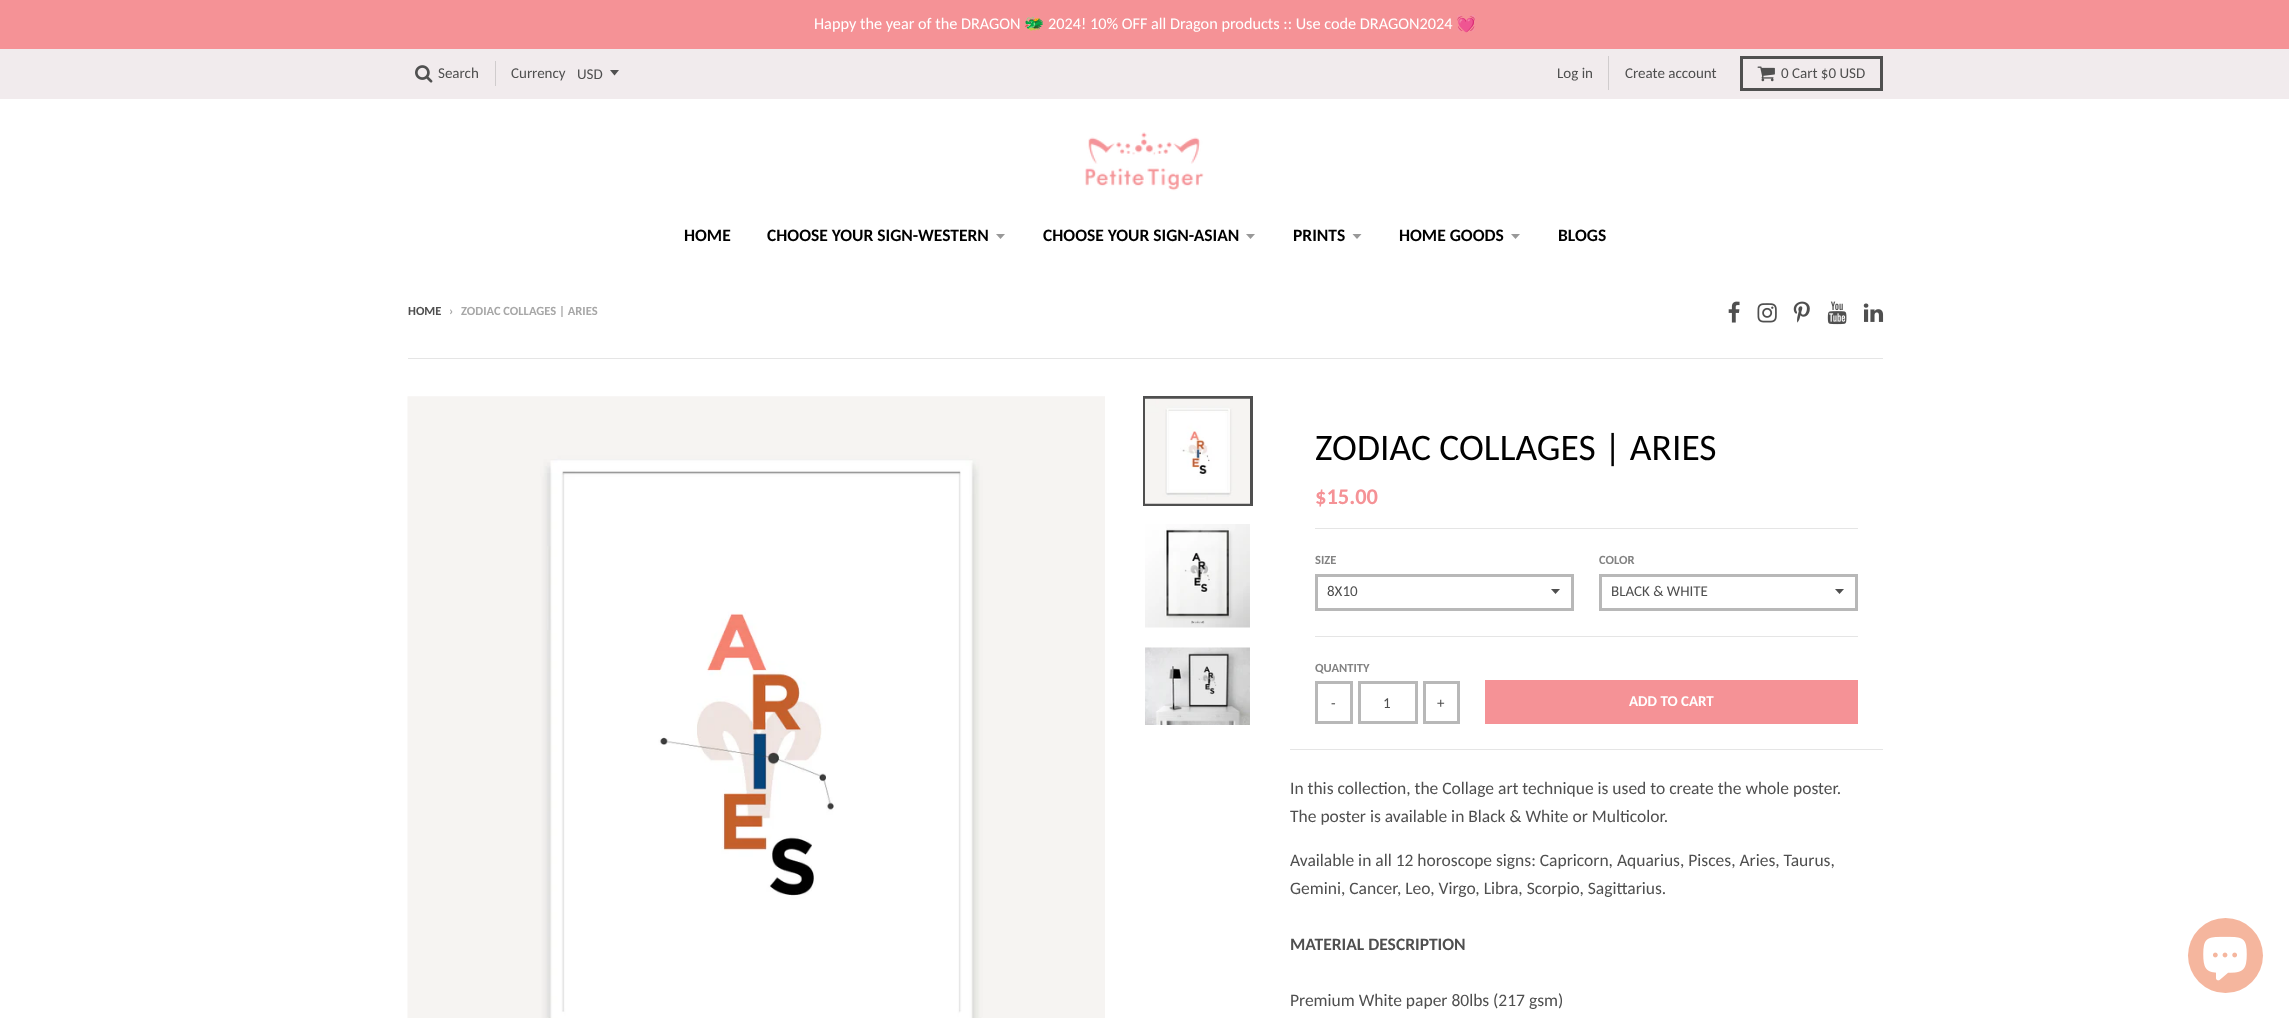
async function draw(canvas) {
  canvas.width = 2289;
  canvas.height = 1018;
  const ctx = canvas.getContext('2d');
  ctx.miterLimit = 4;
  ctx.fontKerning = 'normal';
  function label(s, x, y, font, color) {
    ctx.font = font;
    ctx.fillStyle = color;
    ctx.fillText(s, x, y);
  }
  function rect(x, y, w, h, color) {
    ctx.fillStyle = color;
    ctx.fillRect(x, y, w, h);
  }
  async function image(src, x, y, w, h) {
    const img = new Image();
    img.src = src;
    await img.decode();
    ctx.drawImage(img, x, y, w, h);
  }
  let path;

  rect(0, 0, 2289, 1018, '#fff');
  rect(0, 0, 2289, 49, '#f59296');
  label('Happy the year of the DRAGON', 814, 29, '16.25px Carlito', '#fff');
  label('🐲', 1024, 29, '16.25px Noto Color Emoji', '#fff');
  label('2024! 10% OFF all Dragon products :: Use code DRAGON2024', 1048, 29, '16.25px Carlito', '#fff');
  label('💓', 1456, 29, '16.25px Noto Color Emoji', '#fff');
  rect(0, 49, 2289, 50, '#f1ebed');
  await image('assets/img1.png', 415, 65, 18, 18);
  label('Search', 438, 78, '15px Carlito', '#4f4f4f');
  rect(495, 61, 1, 25, '#d0cccd');
  label('Currency', 511, 78, '15px Carlito', '#4f4f4f');
  ctx.fillStyle = '#505050';
  path = new Path2D('M610 70L614.5 75.5L619 70Z');
  ctx.fill(path);
  label('USD', 577, 79, '15px Carlito', '#4f4f4f');
  rect(1608, 56, 1, 34, '#d0cccd');
  label('Log in', 1557, 78, '15px Carlito', '#4f4f4f');
  label('Create account', 1625, 78, '15px Carlito', '#4f4f4f');
  ctx.strokeStyle = '#505050';
  ctx.lineWidth = 3;
  ctx.strokeRect(1741.5, 57.5, 140, 32);
  await image('assets/img2.png', 1757, 66, 18, 16);
  label('0 Cart $0 USD', 1781, 78, '15px Carlito', '#4f4f4f');
  await image('assets/img3.png', 1085, 132, 119, 59);
  label('HOME', 684, 241, 'bold 17.5px Carlito', '#000');
  label('CHOOSE YOUR SIGN-WESTERN', 767, 241, 'bold 17.5px Carlito', '#000');
  ctx.fillStyle = '#999';
  path = new Path2D('M996 234L1000.5 239L1005 234Z');
  ctx.fill(path);
  label('CHOOSE YOUR SIGN-ASIAN', 1043, 241, 'bold 17.5px Carlito', '#000');
  ctx.fillStyle = '#999';
  path = new Path2D('M1246 234L1250.5 239L1255 234Z');
  ctx.fill(path);
  label('PRINTS', 1293, 241, 'bold 17.5px Carlito', '#000');
  ctx.fillStyle = '#999';
  path = new Path2D('M1352.5 234L1357 239L1361.5 234Z');
  ctx.fill(path);
  label('HOME GOODS', 1399, 241, 'bold 17.5px Carlito', '#000');
  ctx.fillStyle = '#999';
  path = new Path2D('M1511 234L1515.5 239L1520 234Z');
  ctx.fill(path);
  label('BLOGS', 1558, 241, 'bold 17.5px Carlito', '#000');
  label('HOME', 408, 315, 'bold 12.5px Carlito', '#4f4f4f');
  label('›', 449, 315, 'bold 12.5px Carlito', '#a7a7a7');
  label('ZODIAC COLLAGES | ARIES', 461, 315, 'bold 12.5px Carlito', '#a7a7a7');
  await image('assets/img4.png', 1728, 301, 12, 22);
  await image('assets/img5.png', 1757, 303, 20, 20);
  await image('assets/img6.png', 1793, 301, 17, 22);
  await image('assets/img7.png', 1827, 301, 20, 24);
  await image('assets/img8.png', 1863, 303, 21, 19);
  rect(408, 358, 1475, 1, '#e5e5e5');
  await image('assets/img9.png', 407, 396, 698, 622);
  ctx.strokeStyle = '#4f4f4f';
  ctx.strokeRect(1144.5, 397.5, 107, 107);
  await image('assets/img10.png', 1145, 398, 105, 106);
  await image('assets/img11.png', 1145, 524, 105, 104);
  await image('assets/img12.png', 1145, 647, 105, 78);
  rect(1290, 749, 593, 1, '#e5e5e5');
  label('ZODIAC COLLAGES | ARIES', 1315, 460, '37.5px Carlito', '#000');
  rect(1315, 528, 543, 1, '#e5e5e5');
  label('$15.00', 1315, 504, 'bold 22.5px Carlito', '#f59296');
  rect(1315, 636, 543, 1, '#e5e5e5');
  label('SIZE', 1315, 564, 'bold 12.5px Carlito', '#838383');
  ctx.fillStyle = '#4f4f4f';
  path = new Path2D('M1551 589L1555.5 594L1560 589Z');
  ctx.fill(path);
  ctx.strokeStyle = '#b8b8b8';
  ctx.strokeRect(1316.5, 575.5, 256, 34);
  label('8X10', 1327, 596, '15px Carlito', '#4f4f4f');
  label('COLOR', 1599, 564, 'bold 12.5px Carlito', '#838383');
  ctx.fillStyle = '#4f4f4f';
  path = new Path2D('M1835 589L1839.5 594L1844 589Z');
  ctx.fill(path);
  ctx.strokeRect(1600.5, 575.5, 256, 34);
  label('BLACK & WHITE', 1611, 596, '15px Carlito', '#4f4f4f');
  label('QUANTITY', 1315, 672, 'bold 12.5px Carlito', '#838383');
  ctx.strokeRect(1316.5, 682.5, 35, 40);
  label('-', 1331, 708, '15px Carlito', '#4f4f4f');
  ctx.strokeRect(1359.5, 682.5, 57, 40);
  label('1', 1383, 708, '15px Carlito', '#4f4f4f');
  ctx.strokeRect(1424.5, 682.5, 34, 40);
  label('+', 1437, 708, '15px Carlito', '#4f4f4f');
  rect(1485, 680, 373, 44, '#f59296');
  label('ADD TO CART', 1629, 706, 'bold 15px Carlito', '#fff');
  label('In this collection, the Collage art technique is used to create the whole poster.', 1290, 794, '17.5px Carlito', '#4f4f4f');
  label('The poster is available in Black & White or Multicolor.', 1290, 822, '17.5px Carlito', '#4f4f4f');
  label('Available in all 12 horoscope signs: Capricorn, Aquarius, Pisces, Aries, Taurus,', 1290, 866, '17.5px Carlito', '#4f4f4f');
  label('Gemini, Cancer, Leo, Virgo, Libra, Scorpio, Sagittarius.', 1290, 894, '17.5px Carlito', '#4f4f4f');
  label('MATERIAL DESCRIPTION', 1290, 950, 'bold 17.5px Carlito', '#4f4f4f');
  label('Premium White paper 80lbs (217 gsm)', 1290, 1006, '17.5px Carlito', '#4f4f4f');
  ctx.fillStyle = '#f5b69e';
  ctx.beginPath();
  ctx.arc(2225.5, 955.5, 37.5, 0, 2 * Math.PI);
  ctx.fill();
  await image('assets/img13.png', 2203, 936, 44, 45);
}

draw(document.querySelector('canvas'));
